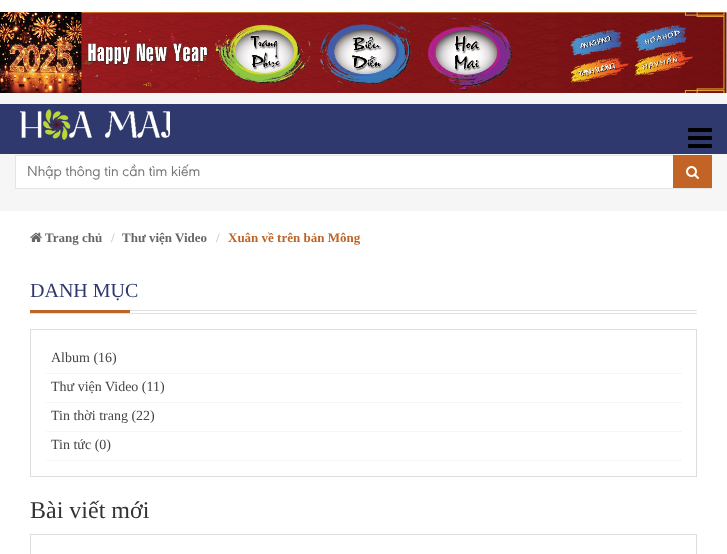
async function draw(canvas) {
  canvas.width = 727;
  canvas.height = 554;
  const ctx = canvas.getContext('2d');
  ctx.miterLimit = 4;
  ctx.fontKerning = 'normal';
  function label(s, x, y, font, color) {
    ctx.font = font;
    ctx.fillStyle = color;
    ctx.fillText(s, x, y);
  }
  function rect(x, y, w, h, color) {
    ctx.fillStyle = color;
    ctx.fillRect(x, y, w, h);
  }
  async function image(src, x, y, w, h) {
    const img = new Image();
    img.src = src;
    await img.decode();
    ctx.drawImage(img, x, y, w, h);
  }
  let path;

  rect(0, 0, 727, 554, '#fff');
  await image('assets/img1.png', 0, 12, 727, 81);
  rect(0, 93, 727, 118, '#f6f6f6');
  rect(0, 104, 727, 50, '#2f396d');
  await image('assets/img2.png', 20, 109, 150, 31);
  await image('assets/img3.png', 688, 128, 24, 20);
  rect(16, 156, 657, 32, '#fff');
  ctx.strokeStyle = '#e5e5e5';
  ctx.strokeRect(15.5, 155.5, 696, 33);
  label('Nhập thông tin cần tìm kiếm', 27, 176, '15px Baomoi', '#757575');
  rect(673, 155, 39, 33, '#c26426');
  await image('assets/img4.png', 686, 166, 13, 13);
  await image('assets/img5.png', 30, 232, 12, 10);
  label('Trang chủ', 45, 242, 'bold 13px Liberation Serif', '#666');
  label('/', 111, 242, 'bold 13px Liberation Serif', '#ccc');
  label('Thư viện Video', 122, 242, 'bold 13px Liberation Serif', '#666');
  label('/', 216, 242, 'bold 13px Liberation Serif', '#ccc');
  label('Xuân về trên bản Mông', 228, 242, 'bold 13px Liberation Serif', '#bd6426');
  rect(30, 313, 667, 1, '#e1e1e1');
  rect(130, 310, 567, 1, '#e1e1e1');
  label('DANH MỤC', 30, 297, '20px Liberation Serif', '#30376d');
  rect(30, 310, 100, 3, '#bd6426');
  ctx.strokeStyle = '#ddd';
  ctx.strokeRect(30.5, 329.5, 666, 147);
  path = new Path2D('M46 373.5H681');
  ctx.strokeStyle = '#eee';
  ctx.setLineDash([1, 1]);
  ctx.stroke(path);
  label('Album (16)', 51, 362, '14px Liberation Serif', '#444');
  path = new Path2D('M46 402.5H681');
  ctx.stroke(path);
  label('Thư viện Video (11)', 51, 391, '14px Liberation Serif', '#444');
  path = new Path2D('M46 431.5H681');
  ctx.stroke(path);
  label('Tin thời trang (22)', 51, 420, '14px Liberation Serif', '#444');
  path = new Path2D('M46 460.5H681');
  ctx.stroke(path);
  label('Tin tức (0)', 51, 449, '14px Liberation Serif', '#444');
  label('Bài viết mới', 30, 518, '24px Liberation Serif', '#333');
  ctx.strokeStyle = '#ddd';
  ctx.setLineDash([]);
  ctx.strokeRect(30.5, 534.5, 666, 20);
}

draw(document.querySelector('canvas'));
